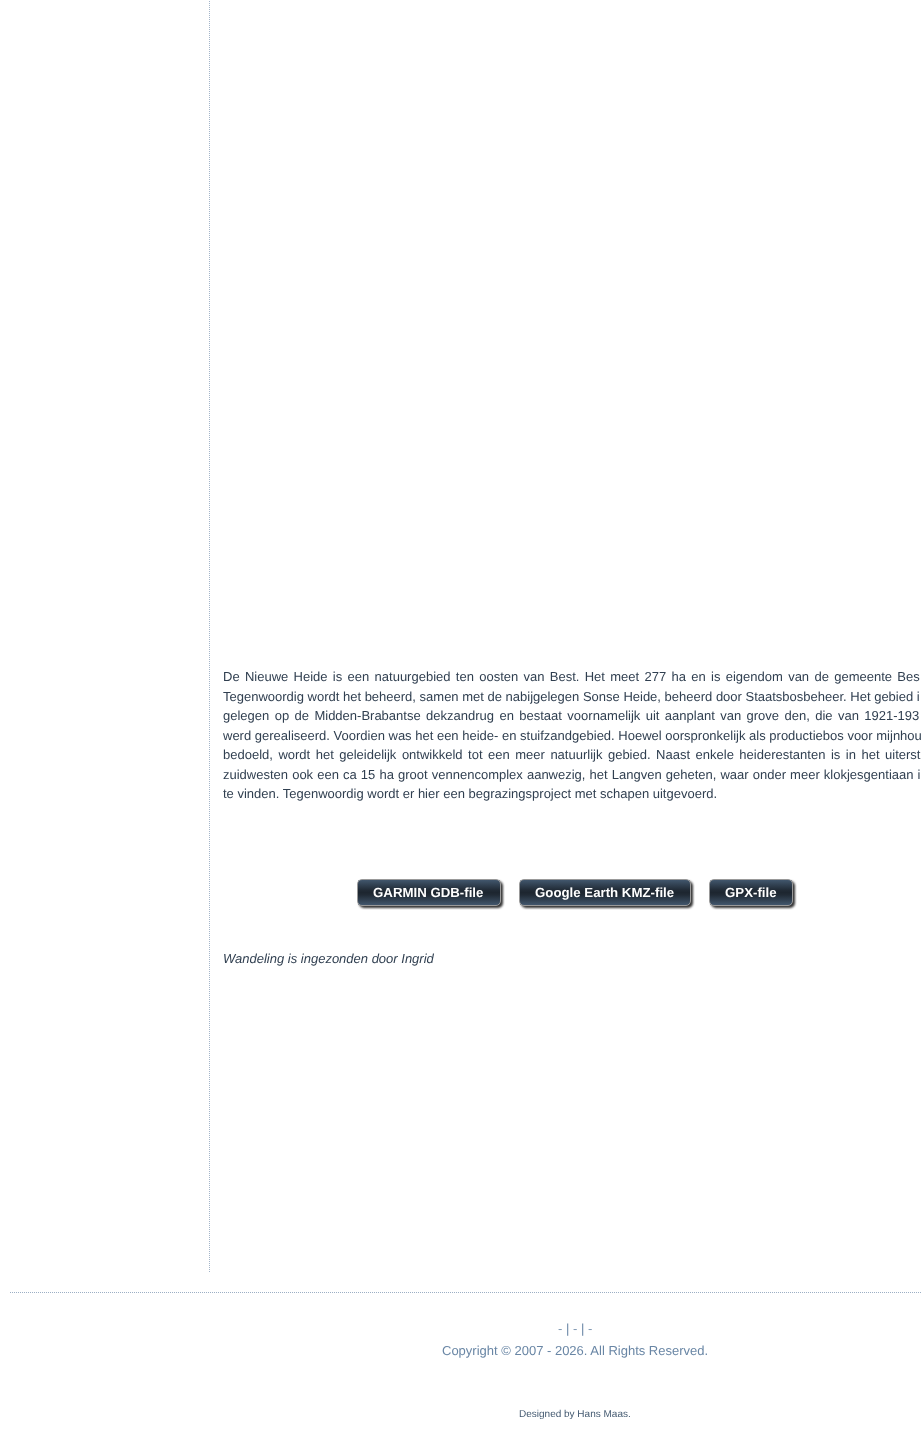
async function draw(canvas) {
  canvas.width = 921;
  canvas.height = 1429;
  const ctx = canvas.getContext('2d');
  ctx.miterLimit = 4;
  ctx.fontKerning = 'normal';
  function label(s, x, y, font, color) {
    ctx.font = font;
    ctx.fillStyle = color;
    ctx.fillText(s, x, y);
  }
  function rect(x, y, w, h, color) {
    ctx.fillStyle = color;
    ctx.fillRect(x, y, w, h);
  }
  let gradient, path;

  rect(0, 0, 921, 1429, '#fff');
  path = new Path2D('M209.5-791V1272');
  ctx.strokeStyle = '#a3b4c8';
  ctx.setLineDash([1, 1]);
  ctx.stroke(path);
  ctx.wordSpacing = '1.7px';
  label('De Nieuwe Heide is een natuurgebied ten oosten van Best. Het meet 277 ha en is eigendom van de gemeente Bes', 223, 681, '13px Liberation Sans', '#303f50');
  ctx.wordSpacing = '0px';
  label('Tegenwoordig wordt het beheerd, samen met de nabijgelegen Sonse Heide, beheerd door Staatsbosbeheer. Het gebied i', 223, 701, '13px Liberation Sans', '#303f50');
  ctx.wordSpacing = '1.8px';
  label('gelegen op de Midden-Brabantse dekzandrug en bestaat voornamelijk uit aanplant van grove den, die van 1921-193', 223, 720, '13px Liberation Sans', '#303f50');
  ctx.wordSpacing = '0px';
  label('werd gerealiseerd. Voordien was het een heide- en stuifzandgebied. Hoewel oorspronkelijk als productiebos voor mijnhou', 223, 740, '13px Liberation Sans', '#303f50');
  ctx.wordSpacing = '1.9px';
  label('bedoeld, wordt het geleidelijk ontwikkeld tot een meer natuurlijk gebied. Naast enkele heiderestanten is in het uiterst', 223, 759, '13px Liberation Sans', '#303f50');
  ctx.wordSpacing = '0.5px';
  label('zuidwesten ook een ca 15 ha groot vennencomplex aanwezig, het Langven geheten, waar onder meer klokjesgentiaan i', 223, 779, '13px Liberation Sans', '#303f50');
  ctx.wordSpacing = '0px';
  label('te vinden. Tegenwoordig wordt er hier een begrazingsproject met schapen uitgevoerd.', 223, 798, '13px Liberation Sans', '#303f50');
  ctx.fillStyle = '#333';
  ctx.filter = 'blur(1px)';
  ctx.beginPath();
  ctx.roundRect(359, 881, 144, 27, 5);
  ctx.fill();
  ctx.filter = 'none';
  ctx.save();
  ctx.beginPath();
  ctx.roundRect(357, 879, 144, 27, 5);
  ctx.clip();
  gradient = ctx.createLinearGradient(429, 880, 429, 905);
  gradient.addColorStop(0, '#41566c');
  gradient.addColorStop(0.4, '#212b36');
  gradient.addColorStop(0.5, '#1d2630');
  gradient.addColorStop(0.6, '#212b36');
  gradient.addColorStop(1, '#41566c');
  ctx.fillStyle = gradient;
  ctx.fillRect(358, 880, 142, 25);
  ctx.restore();
  ctx.beginPath();
  ctx.roundRect(357.5, 879.5, 143, 26, 4.5);
  ctx.strokeStyle = '#999';
  ctx.setLineDash([]);
  ctx.stroke();
  label('GARMIN GDB-file', 373, 897, 'bold 13.25px Liberation Sans', '#fff');
  ctx.fillStyle = '#333';
  ctx.filter = 'blur(1px)';
  ctx.beginPath();
  ctx.roundRect(521, 881, 172, 27, 5);
  ctx.fill();
  ctx.filter = 'none';
  ctx.save();
  ctx.beginPath();
  ctx.roundRect(519, 879, 172, 27, 5);
  ctx.clip();
  gradient = ctx.createLinearGradient(605, 880, 605, 905);
  gradient.addColorStop(0, '#41566c');
  gradient.addColorStop(0.4, '#212b36');
  gradient.addColorStop(0.5, '#1d2630');
  gradient.addColorStop(0.6, '#212b36');
  gradient.addColorStop(1, '#41566c');
  ctx.fillStyle = gradient;
  ctx.fillRect(520, 880, 170, 25);
  ctx.restore();
  ctx.beginPath();
  ctx.roundRect(519.5, 879.5, 171, 26, 4.5);
  ctx.stroke();
  label('Google Earth KMZ-file', 535, 897, 'bold 13.25px Liberation Sans', '#fff');
  ctx.fillStyle = '#333';
  ctx.filter = 'blur(1px)';
  ctx.beginPath();
  ctx.roundRect(711, 881, 84, 27, 5);
  ctx.fill();
  ctx.filter = 'none';
  ctx.save();
  ctx.beginPath();
  ctx.roundRect(709, 879, 84, 27, 5);
  ctx.clip();
  gradient = ctx.createLinearGradient(751, 880, 751, 905);
  gradient.addColorStop(0, '#41566c');
  gradient.addColorStop(0.4, '#212b36');
  gradient.addColorStop(0.5, '#1d2630');
  gradient.addColorStop(0.6, '#212b36');
  gradient.addColorStop(1, '#41566c');
  ctx.fillStyle = gradient;
  ctx.fillRect(710, 880, 82, 25);
  ctx.restore();
  ctx.beginPath();
  ctx.roundRect(709.5, 879.5, 83, 26, 4.5);
  ctx.stroke();
  label('GPX-file', 725, 897, 'bold 13.25px Liberation Sans', '#fff');
  label('Wandeling is ingezonden door Ingrid', 223, 963, 'italic 13px Liberation Sans', '#303f50');
  path = new Path2D('M10 1292.5H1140');
  ctx.strokeStyle = '#9cafc4';
  ctx.setLineDash([1, 1]);
  ctx.stroke(path);
  label('-', 558, 1333, '13px Liberation Sans', '#839bb4');
  label('|', 566, 1333, '13px Liberation Sans', '#6986a5');
  label('-', 573, 1333, '13px Liberation Sans', '#839bb4');
  label('|', 581, 1333, '13px Liberation Sans', '#6986a5');
  label('-', 588, 1333, '13px Liberation Sans', '#839bb4');
  label('Copyright © 2007 - 2026. All Rights Reserved.', 442, 1355, '13px Liberation Sans', '#6986a5');
  label('Designed by Hans Maas.', 519, 1417, '10px Liberation Sans', '#435970');
}

draw(document.querySelector('canvas'));
